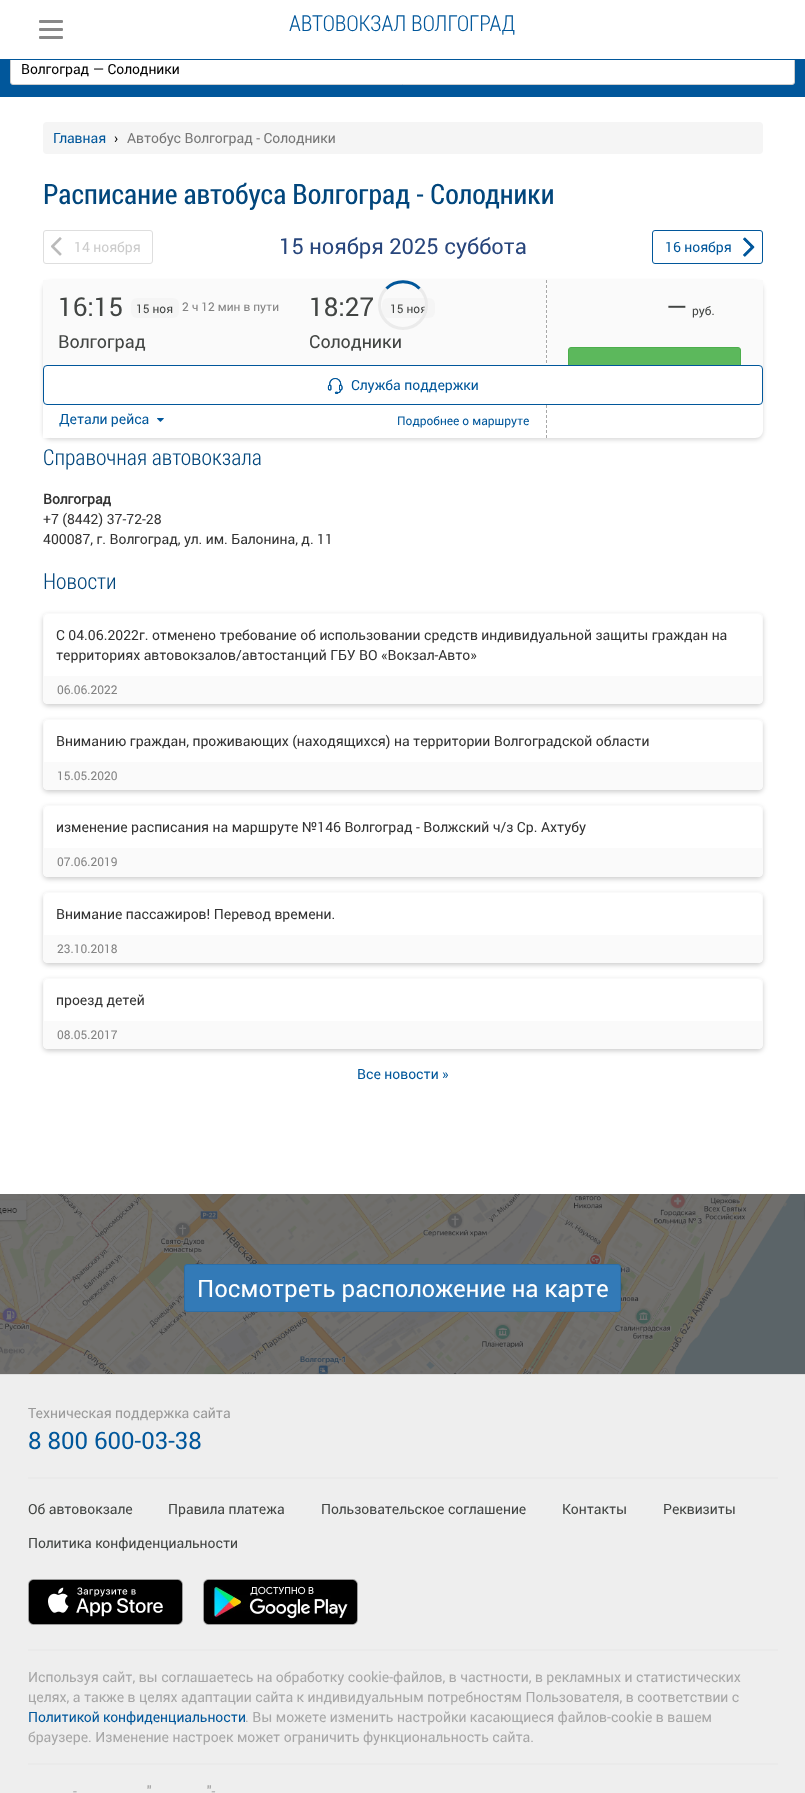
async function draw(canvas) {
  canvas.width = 805;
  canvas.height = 1793;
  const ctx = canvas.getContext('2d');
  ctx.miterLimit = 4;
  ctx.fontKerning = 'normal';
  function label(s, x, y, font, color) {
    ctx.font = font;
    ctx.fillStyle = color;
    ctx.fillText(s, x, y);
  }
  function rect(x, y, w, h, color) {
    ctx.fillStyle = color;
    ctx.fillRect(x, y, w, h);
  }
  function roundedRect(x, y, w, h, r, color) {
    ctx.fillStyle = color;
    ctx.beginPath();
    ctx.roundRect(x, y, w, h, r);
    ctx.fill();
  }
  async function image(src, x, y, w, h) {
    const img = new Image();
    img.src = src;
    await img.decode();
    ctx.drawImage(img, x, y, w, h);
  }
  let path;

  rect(0, 0, 805, 1793, '#fff');
  rect(0, 60, 805, 37, '#01579b');
  ctx.fillStyle = '#fff';
  ctx.beginPath();
  ctx.roundRect(10.5, 51.5, 784, 33, 2.5);
  ctx.fill();
  ctx.strokeStyle = '#ccc';
  ctx.stroke();
  rect(10, 51, 785, 8, '#fff');
  rect(0, 59, 805, 1, '#01579b');
  roundedRect(39, 20, 24, 3, 1, '#888');
  roundedRect(39, 28, 24, 3, 1, '#888');
  roundedRect(39, 36, 24, 3, 1, '#888');
  label('АВТОВОКЗАЛ ВОЛГОГРАД', 289, 31, '300 22px Roboto Condensed', '#01579b');
  label('Волгоград — Солодники', 21, 74, '14px Roboto', '#000');
  roundedRect(43, 122, 720, 32, 4, '#f5f5f5');
  label('Главная', 53, 143, '14px Roboto', '#01579b');
  label('›', 114, 143, '14px Roboto', '#000');
  label('Автобус Волгоград - Солодники', 127, 143, '14px Roboto', '#777');
  label('Расписание автобуса Волгоград - Солодники', 43, 204, '28px Roboto Condensed', '#01467c');
  ctx.beginPath();
  ctx.roundRect(43.5, 230.5, 109, 33, 2.5);
  ctx.strokeStyle = '#dedede';
  ctx.stroke();
  await image('assets/img1.png', 51, 237, 11, 19);
  await image('assets/img2.png', 51, 237, 11, 19);
  label('14 ноября', 74, 252, '14px Roboto', '#ccc');
  label('15 ноября 2025 суббота', 279, 254, '22px Roboto', '#28467c');
  ctx.beginPath();
  ctx.roundRect(652.5, 230.5, 110, 33, 2.5);
  ctx.strokeStyle = '#01579b';
  ctx.stroke();
  await image('assets/img3.png', 743, 237, 12, 20);
  label('16 ноября', 665, 252, '14px Roboto', '#01579b');
  await image('assets/img4.png', 743, 237, 12, 20);
  ctx.save();
  path = new Path2D('M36 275H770V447H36ZM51 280H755C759.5 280 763 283.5 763 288V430C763 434.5 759.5 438 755 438H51C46.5 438 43 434.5 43 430V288C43 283.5 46.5 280 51 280Z');
  ctx.clip(path, 'evenodd');
  ctx.fillStyle = '#00000026';
  ctx.filter = 'blur(2px)';
  ctx.beginPath();
  ctx.roundRect(43, 282, 720, 158, 8);
  ctx.fill();
  ctx.filter = 'none';
  ctx.restore();
  rect(43, 280, 503, 122, '#fafafa');
  roundedRect(382, 298, 53, 20, 6, '#f5f5f5');
  label('15 ноя', 390, 313, '12px Roboto', '#424543');
  ctx.beginPath();
  ctx.arc(403, 305, 23.5, 0, 2 * Math.PI);
  ctx.strokeStyle = '#ebebeb';
  ctx.lineWidth = 3;
  ctx.stroke();
  path = new Path2D('M386.5 288.5C395.5 279.5 410.5 279.5 419.5 288.5');
  ctx.strokeStyle = '#01579b';
  ctx.stroke(path);
  path = new Path2D('M546.5 280V438');
  ctx.strokeStyle = '#a7a7a7';
  ctx.lineWidth = 1;
  ctx.setLineDash([3, 2]);
  ctx.stroke(path);
  label('16:15', 58, 316, '26px Roboto', '#424543');
  roundedRect(131, 298, 48, 20, 6, '#f5f5f5');
  label('15 ноя', 136, 313, '12px Roboto', '#424543');
  label('2 ч 12 мин в пути', 182, 311, '12px Roboto', '#838383');
  label('Волгоград', 58, 348, '18px Roboto', '#424543');
  label('18:27', 309, 316, '26px Roboto', '#424543');
  label('Солодники', 309, 348, '18px Roboto', '#424543');
  rect(43, 431, 7, 7, '#fff');
  label('Детали рейса', 59, 424, '14px Roboto', '#01579b');
  await image('assets/img5.png', 157, 418, 7, 4);
  label('Подробнее о маршруте', 397, 425, '12px Roboto', '#01579b');
  rect(547, 280, 216, 122, '#fafafa');
  label('—', 666, 316, '26px Roboto', '#424543');
  label('руб.', 692, 315, '12px Roboto', '#424543');
  ctx.fillStyle = '#5cb85c';
  ctx.beginPath();
  ctx.roundRect(568.5, 347.5, 172, 39, 2.5);
  ctx.fill();
  ctx.strokeStyle = '#4cae4c';
  ctx.setLineDash([]);
  ctx.stroke();
  ctx.fillStyle = '#fff';
  ctx.beginPath();
  ctx.roundRect(43.5, 365.5, 719, 39, 3.5);
  ctx.fill();
  ctx.strokeStyle = '#01579b';
  ctx.stroke();
  await image('assets/img6.png', 327, 378, 16, 16);
  label('Служба поддержки', 351, 390, '14px Roboto', '#01579b');
  label('Справочная автовокзала', 43, 465, '300 22px Roboto Condensed', '#01467c');
  label('Волгоград', 43, 504, 'bold 14px Roboto', '#333');
  label('+7 (8442) 37-72-28', 43, 524, '14px Roboto', '#333');
  label('400087, г. Волгоград, ул. им. Балонина, д. 11', 43, 544, '14px Roboto', '#333');
  label('Новости', 43, 589, '300 22px Roboto Condensed', '#01467c');
  ctx.save();
  path = new Path2D('M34 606H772V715H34ZM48 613H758C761 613 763 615 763 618V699C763 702 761 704 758 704H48C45 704 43 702 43 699V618C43 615 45 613 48 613Z');
  ctx.clip(path, 'evenodd');
  ctx.fillStyle = '#00000033';
  ctx.filter = 'blur(2.5px)';
  ctx.beginPath();
  ctx.roundRect(43, 615, 720, 91, 5);
  ctx.fill();
  ctx.filter = 'none';
  ctx.restore();
  ctx.beginPath();
  ctx.roundRect(43.5, 613.5, 719, 90, 4.5);
  ctx.strokeStyle = '#fafafa';
  ctx.stroke();
  label('С 04.06.2022г. отменено требование об использовании средств индивидуальной защиты граждан на', 56, 640, '14px Roboto', '#333');
  label('территориях автовокзалов/автостанций ГБУ ВО «Вокзал-Авто»', 56, 660, '14px Roboto', '#333');
  rect(44, 676, 718, 27, '#fafafa');
  label('06.06.2022', 57, 694, '12px Roboto', '#838383');
  ctx.save();
  path = new Path2D('M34 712H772V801H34ZM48 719H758C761 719 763 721 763 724V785C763 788 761 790 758 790H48C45 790 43 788 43 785V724C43 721 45 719 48 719Z');
  ctx.clip(path, 'evenodd');
  ctx.fillStyle = '#00000033';
  ctx.filter = 'blur(2.5px)';
  ctx.beginPath();
  ctx.roundRect(43, 721, 720, 71, 5);
  ctx.fill();
  ctx.filter = 'none';
  ctx.restore();
  ctx.beginPath();
  ctx.roundRect(43.5, 719.5, 719, 70, 4.5);
  ctx.stroke();
  label('Вниманию граждан, проживающих (находящихся) на территории Волгоградской области', 56, 746, '14px Roboto', '#333');
  rect(44, 762, 718, 27, '#fafafa');
  label('15.05.2020', 57, 780, '12px Roboto', '#838383');
  ctx.save();
  path = new Path2D('M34 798H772V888H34ZM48 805H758C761 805 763 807 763 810V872C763 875 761 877 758 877H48C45 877 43 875 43 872V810C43 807 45 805 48 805Z');
  ctx.clip(path, 'evenodd');
  ctx.fillStyle = '#00000033';
  ctx.filter = 'blur(2.5px)';
  ctx.beginPath();
  ctx.roundRect(43, 807, 720, 72, 5);
  ctx.fill();
  ctx.filter = 'none';
  ctx.restore();
  ctx.beginPath();
  ctx.roundRect(43.5, 805.5, 719, 71, 4.5);
  ctx.stroke();
  label('изменение расписания на маршруте №146 Волгоград - Волжский ч/з Ср. Ахтубу', 56, 832, '14px Roboto', '#333');
  rect(44, 848, 718, 28, '#fafafa');
  label('07.06.2019', 57, 866, '12px Roboto', '#838383');
  ctx.save();
  path = new Path2D('M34 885H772V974H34ZM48 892H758C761 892 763 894 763 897V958C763 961 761 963 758 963H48C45 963 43 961 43 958V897C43 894 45 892 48 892Z');
  ctx.clip(path, 'evenodd');
  ctx.fillStyle = '#00000033';
  ctx.filter = 'blur(2.5px)';
  ctx.beginPath();
  ctx.roundRect(43, 894, 720, 71, 5);
  ctx.fill();
  ctx.filter = 'none';
  ctx.restore();
  ctx.beginPath();
  ctx.roundRect(43.5, 892.5, 719, 70, 4.5);
  ctx.stroke();
  label('Внимание пассажиров! Перевод времени.', 56, 919, '14px Roboto', '#333');
  rect(44, 935, 718, 27, '#fafafa');
  label('23.10.2018', 57, 953, '12px Roboto', '#838383');
  ctx.save();
  path = new Path2D('M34 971H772V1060H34ZM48 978H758C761 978 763 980 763 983V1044C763 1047 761 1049 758 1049H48C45 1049 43 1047 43 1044V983C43 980 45 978 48 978Z');
  ctx.clip(path, 'evenodd');
  ctx.fillStyle = '#00000033';
  ctx.filter = 'blur(2.5px)';
  ctx.beginPath();
  ctx.roundRect(43, 980, 720, 71, 5);
  ctx.fill();
  ctx.filter = 'none';
  ctx.restore();
  ctx.beginPath();
  ctx.roundRect(43.5, 978.5, 719, 70, 4.5);
  ctx.stroke();
  label('проезд детей', 56, 1005, '14px Roboto', '#333');
  rect(44, 1021, 718, 27, '#fafafa');
  label('08.05.2017', 57, 1039, '12px Roboto', '#838383');
  label('Все новости »', 357, 1079, '14px Roboto', '#01579b');
  await image('assets/img7.png', 0, 1194, 805, 180);
  ctx.fillStyle = '#337ab7';
  ctx.beginPath();
  ctx.roundRect(184.5, 1264.5, 436, 47, 2.5);
  ctx.fill();
  ctx.strokeStyle = '#2e6da4';
  ctx.stroke();
  label('Посмотреть расположение на карте', 197, 1297, '24px Roboto', '#fff');
  rect(0, 1375, 805, 418, '#eee');
  rect(0, 1374, 805, 1, '#ddd');
  label('Техническая поддержка сайта', 28, 1418, '14px Roboto', '#9a9a9a');
  label('8 800 600-03-38', 28, 1449, '24px Roboto', '#01579b');
  rect(28, 1477, 750, 2, '#eaeaea');
  label('Об автовокзале', 28, 1514, '14px Roboto', '#424543');
  label('Правила платежа', 168, 1514, '14px Roboto', '#424543');
  label('Пользовательское соглашение', 321, 1514, '14px Roboto', '#424543');
  label('Контакты', 562, 1514, '14px Roboto', '#424543');
  label('Реквизиты', 663, 1514, '14px Roboto', '#424543');
  label('Политика конфиденциальности', 28, 1548, '14px Roboto', '#424543');
  await image('assets/img8.png', 28, 1579, 155, 46);
  await image('assets/img9.png', 203, 1579, 155, 46);
  rect(28, 1649, 750, 2, '#eaeaea');
  label('Используя сайт, вы соглашаетесь на обработку cookie-файлов, в частности, в рекламных и статистических', 28, 1682, '14px Roboto', '#a7a7a7');
  label('целях, а также в целях адаптации сайта к индивидуальным потребностям Пользователя, в соответствии с', 28, 1702, '14px Roboto', '#a7a7a7');
  label('Политикой конфиденциальности', 28, 1722, '14px Roboto', '#01579b');
  label('. Вы можете изменить настройки касающиеся файлов-cookie в вашем', 245, 1722, '14px Roboto', '#a7a7a7');
  label('браузере. Изменение настроек может ограничить функциональность сайта.', 28, 1742, '14px Roboto', '#a7a7a7');
  rect(28, 1763, 750, 2, '#eaeaea');
  label('-', 73, 1796, '14px Roboto', '#a7a7a7');
  label('"', 147, 1796, '14px Roboto', '#a7a7a7');
  label('"-', 207, 1796, '14px Roboto', '#a7a7a7');
}

draw(document.querySelector('canvas'));
